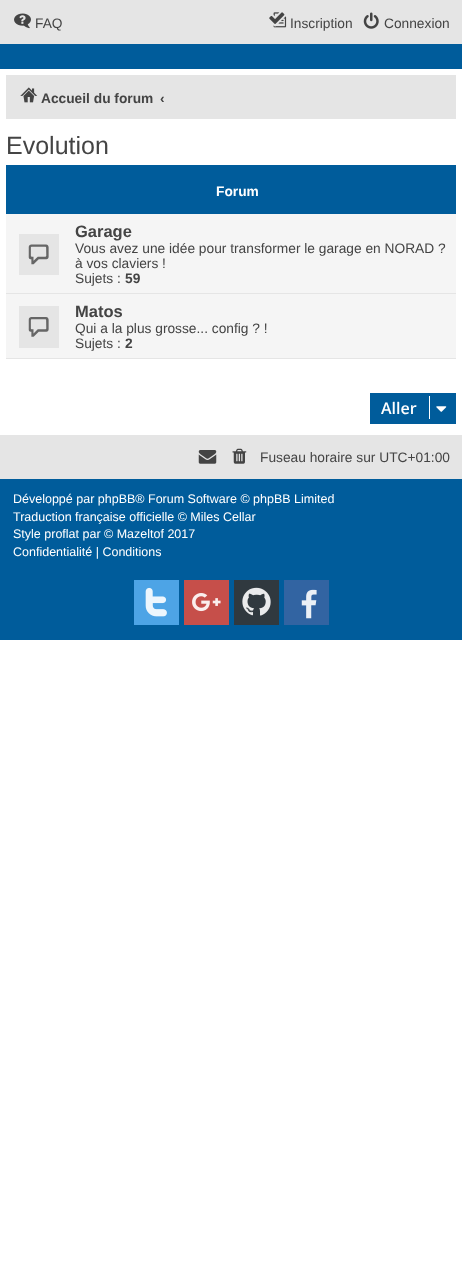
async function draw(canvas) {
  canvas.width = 462;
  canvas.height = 1266;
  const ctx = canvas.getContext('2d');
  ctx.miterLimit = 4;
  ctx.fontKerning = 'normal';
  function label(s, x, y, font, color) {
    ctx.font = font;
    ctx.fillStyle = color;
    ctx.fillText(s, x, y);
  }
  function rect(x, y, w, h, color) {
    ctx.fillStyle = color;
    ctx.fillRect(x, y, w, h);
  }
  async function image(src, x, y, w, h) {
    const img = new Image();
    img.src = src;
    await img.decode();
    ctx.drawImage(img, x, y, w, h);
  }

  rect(0, 0, 462, 1266, '#fff');
  rect(0, 0, 462, 44, '#e5e5e5');
  await image('assets/img1.png', 14, 13, 17, 16);
  label('FAQ', 35, 28, '13.75px Liberation Sans', '#444');
  await image('assets/img2.png', 269, 12, 18, 16);
  label('Inscription', 290, 28, '13.75px Liberation Sans', '#444');
  await image('assets/img3.png', 363, 12, 16, 17);
  label('Connexion', 384, 28, '13.75px Liberation Sans', '#444');
  rect(0, 44, 462, 25, '#005c9b');
  rect(6, 75, 450, 44, '#e5e5e5');
  await image('assets/img4.png', 20, 87, 18, 16);
  label('Accueil du forum', 41, 103, 'bold 13.75px Liberation Sans', '#444');
  label('‹', 160, 103, 'bold 13.75px Liberation Sans', '#444');
  label('Evolution', 6, 154, '25px Liberation Sans', '#444');
  rect(6, 165, 450, 49, '#005c9b');
  label('Forum', 216, 196, 'bold 13.75px Liberation Sans', '#fff');
  rect(6, 214, 450, 144, '#f5f5f5');
  rect(6, 293, 450, 1, '#e5e5e5');
  rect(19, 234, 40, 41, '#e5e5e5');
  await image('assets/img5.png', 28, 244, 21, 21);
  label('Garage', 75, 237, 'bold 16.5px Liberation Sans', '#444');
  label('Vous avez une idée pour transformer le garage en NORAD ?', 75, 253, '13.75px Liberation Sans', '#444');
  label('à vos claviers !', 75, 268, '13.75px Liberation Sans', '#444');
  label('Sujets :', 75, 283, '13.75px Liberation Sans', '#444');
  label('59', 125, 283, 'bold 13.75px Liberation Sans', '#444');
  rect(6, 358, 450, 1, '#e5e5e5');
  rect(19, 306, 40, 42, '#e5e5e5');
  await image('assets/img6.png', 28, 317, 21, 20);
  label('Matos', 75, 317, 'bold 16.5px Liberation Sans', '#444');
  label('Qui a la plus grosse... config ? !', 75, 333, '13.75px Liberation Sans', '#444');
  label('Sujets :', 75, 348, '13.75px Liberation Sans', '#444');
  label('2', 125, 348, 'bold 13.75px Liberation Sans', '#444');
  rect(370, 393, 86, 31, '#005c9b');
  label('Aller', 381, 414, '600 16px Open Sans', '#fff');
  rect(429, 396, 1, 23, '#fff');
  await image('assets/img7.png', 436, 406, 11, 6);
  rect(0, 435, 462, 44, '#e5e5e5');
  await image('assets/img8.png', 198, 450, 19, 14);
  await image('assets/img9.png', 232, 448, 15, 16);
  label('Fuseau horaire sur UTC+01:00', 260, 462, '13.75px Liberation Sans', '#444');
  rect(0, 479, 462, 161, '#005c9b');
  label('Développé par phpBB® Forum Software © phpBB Limited', 13, 503, '12.5px Liberation Sans', '#fff');
  label('Traduction française officielle © Miles Cellar', 13, 521, '12.5px Liberation Sans', '#fff');
  label('Style proflat par © Mazeltof 2017', 13, 538, '12.5px Liberation Sans', '#fff');
  label('Confidentialité | Conditions', 13, 556, '12.5px Liberation Sans', '#fff');
  rect(134, 580, 45, 45, '#4da4e6');
  await image('assets/img10.png', 145, 587, 22, 30);
  rect(184, 580, 45, 45, '#c64f4a');
  await image('assets/img11.png', 192, 593, 29, 19);
  rect(234, 580, 45, 45, '#30393f');
  await image('assets/img12.png', 242, 587, 29, 29);
  rect(284, 580, 45, 45, '#3264a2');
  await image('assets/img13.png', 301, 589, 16, 30);
}

draw(document.querySelector('canvas'));
